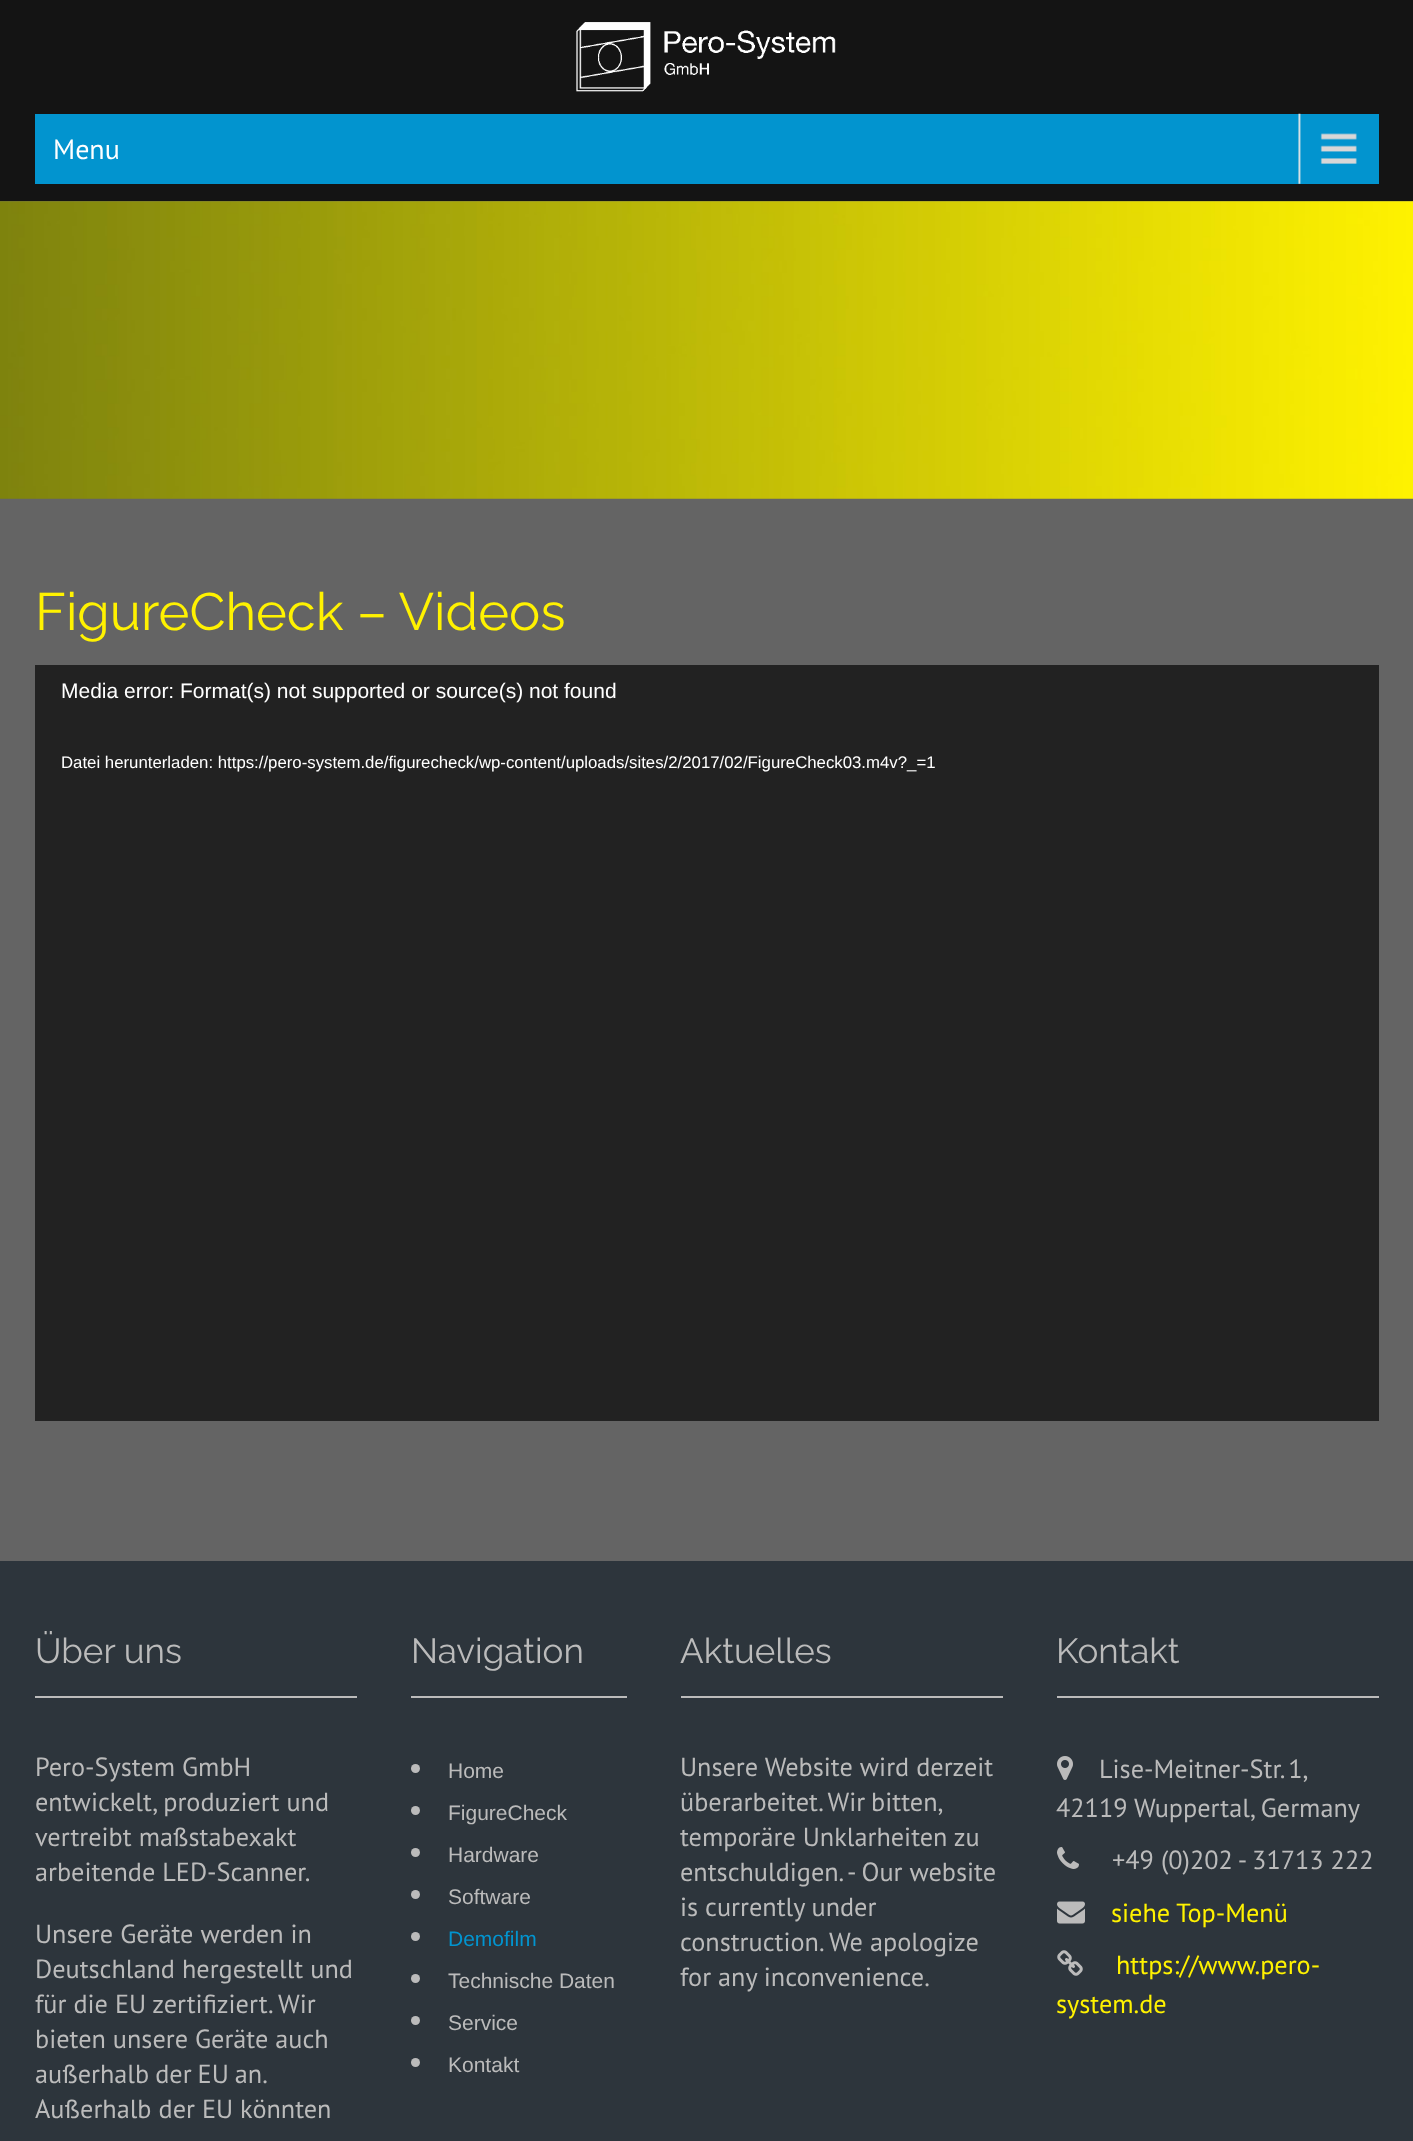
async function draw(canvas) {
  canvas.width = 1413;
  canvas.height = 2141;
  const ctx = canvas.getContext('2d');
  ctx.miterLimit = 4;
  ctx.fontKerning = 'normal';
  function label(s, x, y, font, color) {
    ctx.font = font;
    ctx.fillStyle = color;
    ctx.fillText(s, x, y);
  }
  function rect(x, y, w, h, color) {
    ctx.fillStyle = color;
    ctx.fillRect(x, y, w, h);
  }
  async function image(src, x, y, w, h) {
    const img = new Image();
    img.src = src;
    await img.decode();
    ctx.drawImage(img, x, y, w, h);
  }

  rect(0, 0, 1413, 2141, '#646464');
  rect(0, 0, 1413, 201, '#141414');
  await image('assets/img1.png', 576, 22, 260, 70);
  rect(35, 114, 1344, 70, '#0294cf');
  await image('assets/img2.png', 1298, 113, 59, 71);
  label('Menu', 53, 159, '28px PT Sans', '#fff');
  await image('assets/img3.png', 0, 201, 1413, 298);
  label('FigureCheck – Videos', 35, 630, '100 52.5px Raleway', '#fff200');
  rect(35, 665, 1344, 756, '#222');
  label('Media error: Format(s) not supported or source(s) not found', 61, 698, '21px Liberation Sans', '#fff');
  label('Datei herunterladen: https://pero-system.de/figurecheck/wp-content/uploads/sites/2/2017/02/FigureCheck03.m4v?_=1', 61, 768, '16.8px Liberation Sans', '#fff');
  rect(0, 1561, 1413, 580, '#2d353c');
  rect(35, 1696, 322, 2, '#bbb');
  label('Über uns', 35, 1663, '100 35px Raleway', '#bbb');
  label('Pero-System GmbH', 35, 1776, '26.25px PT Sans', '#bbb');
  label('entwickelt, produziert und', 35, 1811, '26.25px PT Sans', '#bbb');
  label('vertreibt maßstabexakt', 35, 1846, '26.25px PT Sans', '#bbb');
  label('arbeitende LED-Scanner.', 35, 1881, '26.25px PT Sans', '#bbb');
  label('Unsere Geräte werden in', 35, 1943, '26.25px PT Sans', '#bbb');
  label('Deutschland hergestellt und', 35, 1978, '26.25px PT Sans', '#bbb');
  label('für die EU zertifiziert. Wir', 35, 2013, '26.25px PT Sans', '#bbb');
  label('bieten unsere Geräte auch', 35, 2048, '26.25px PT Sans', '#bbb');
  ctx.wordSpacing = '-1px';
  label('außerhalb der EU an.', 35, 2083, '26.25px PT Sans', '#bbb');
  ctx.wordSpacing = '0px';
  label('Außerhalb der EU könnten', 35, 2118, '26.25px PT Sans', '#bbb');
  rect(411, 1696, 216, 2, '#bbb');
  label('Navigation', 411, 1663, '100 35px Raleway', '#bbb');
  ctx.beginPath();
  ctx.arc(415.5, 1768.5, 4.5, 0, 2 * Math.PI);
  ctx.fill();
  label('Home', 448, 1778, '21px Liberation Sans', '#bbb');
  ctx.beginPath();
  ctx.arc(415.5, 1810.5, 4.5, 0, 2 * Math.PI);
  ctx.fill();
  label('FigureCheck', 448, 1820, '21px Liberation Sans', '#bbb');
  ctx.beginPath();
  ctx.arc(415.5, 1852.5, 4.5, 0, 2 * Math.PI);
  ctx.fill();
  label('Hardware', 448, 1862, '21px Liberation Sans', '#bbb');
  ctx.beginPath();
  ctx.arc(415.5, 1894.5, 4.5, 0, 2 * Math.PI);
  ctx.fill();
  label('Software', 448, 1904, '21px Liberation Sans', '#bbb');
  ctx.beginPath();
  ctx.arc(415.5, 1936.5, 4.5, 0, 2 * Math.PI);
  ctx.fill();
  label('Demofilm', 448, 1946, '21px Liberation Sans', '#0294cf');
  ctx.fillStyle = '#bbb';
  ctx.beginPath();
  ctx.arc(415.5, 1978.5, 4.5, 0, 2 * Math.PI);
  ctx.fill();
  label('Technische Daten', 448, 1988, '21px Liberation Sans', '#bbb');
  ctx.beginPath();
  ctx.arc(415.5, 2020.5, 4.5, 0, 2 * Math.PI);
  ctx.fill();
  label('Service', 448, 2030, '21px Liberation Sans', '#bbb');
  ctx.beginPath();
  ctx.arc(415.5, 2062.5, 4.5, 0, 2 * Math.PI);
  ctx.fill();
  label('Kontakt', 448, 2072, '21px Liberation Sans', '#bbb');
  rect(681, 1696, 322, 2, '#bbb');
  label('Aktuelles', 680, 1663, '100 35px Raleway', '#bbb');
  label('Unsere Website wird derzeit', 680, 1776, '26.25px PT Sans', '#bbb');
  ctx.wordSpacing = '-1px';
  label('überarbeitet. Wir bitten,', 680, 1811, '26.25px PT Sans', '#bbb');
  ctx.wordSpacing = '0px';
  label('temporäre Unklarheiten zu', 680, 1846, '26.25px PT Sans', '#bbb');
  label('entschuldigen. - Our website', 680, 1881, '26.25px PT Sans', '#bbb');
  label('is currently under', 680, 1916, '26.25px PT Sans', '#bbb');
  label('construction. We apologize', 680, 1951, '26.25px PT Sans', '#bbb');
  label('for any inconvenience.', 680, 1986, '26.25px PT Sans', '#bbb');
  rect(1057, 1696, 322, 2, '#bbb');
  label('Kontakt', 1056, 1663, '100 35px Raleway', '#bbb');
  await image('assets/img4.png', 1057, 1756, 16, 24);
  ctx.wordSpacing = '-2px';
  label('Lise-Meitner-Str. 1,', 1099, 1778, '26.25px PT Sans', '#bbb');
  ctx.wordSpacing = '0px';
  label('42119 Wuppertal, Germany', 1056, 1817, '26.25px PT Sans', '#bbb');
  await image('assets/img5.png', 1057, 1847, 22, 22);
  label('+49 (0)202 - 31713 222', 1112, 1869, '26.25px PT Sans', '#bbb');
  await image('assets/img6.png', 1057, 1901, 28, 23);
  label('siehe Top-Menü', 1111, 1922, '26.25px PT Sans', '#fff200');
  await image('assets/img7.png', 1057, 1950, 26, 26);
  label('https://www.pero-', 1116, 1974, '26.25px PT Sans', '#fff200');
  label('system.de', 1056, 2013, '26.25px PT Sans', '#fff200');
}

draw(document.querySelector('canvas'));
